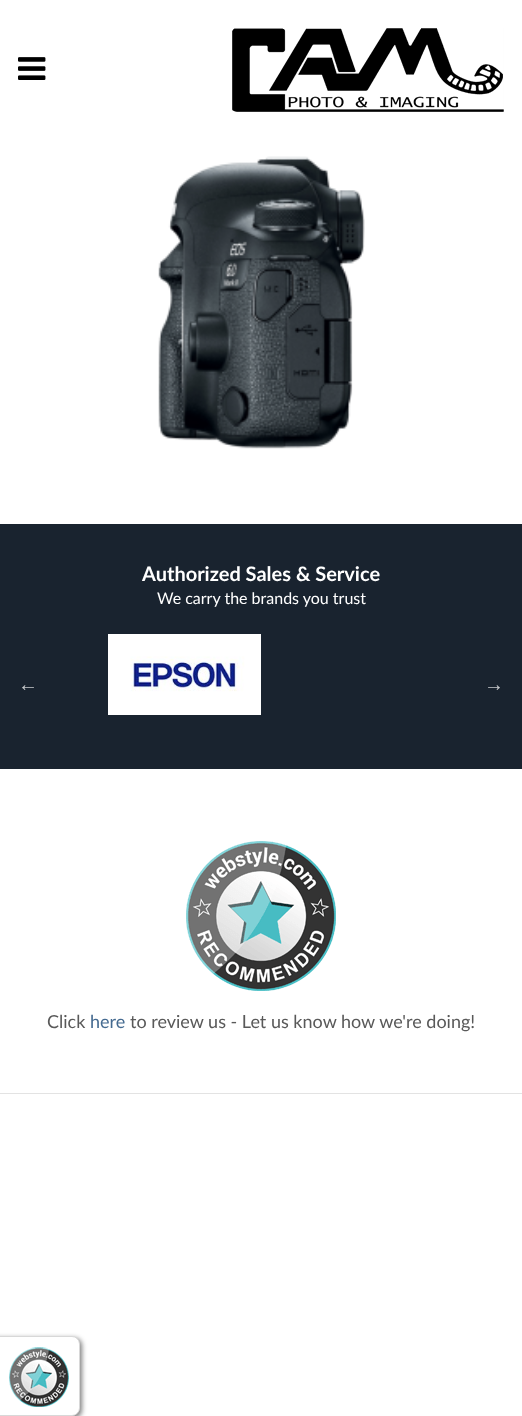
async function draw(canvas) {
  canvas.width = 522;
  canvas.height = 1416;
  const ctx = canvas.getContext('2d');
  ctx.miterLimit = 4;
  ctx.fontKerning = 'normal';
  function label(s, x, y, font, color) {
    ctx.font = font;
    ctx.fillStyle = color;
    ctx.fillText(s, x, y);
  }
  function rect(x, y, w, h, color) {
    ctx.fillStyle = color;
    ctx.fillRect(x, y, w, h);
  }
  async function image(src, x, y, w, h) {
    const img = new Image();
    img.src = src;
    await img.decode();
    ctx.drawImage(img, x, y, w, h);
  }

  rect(0, 0, 522, 1416, '#fff');
  await image('assets/img1.png', 18, 57, 28, 23);
  await image('assets/img2.png', 232, 28, 272, 84);
  await image('assets/img3.png', 158, 156, 207, 293);
  rect(0, 524, 522, 245, '#19232f');
  label('Authorized Sales & Service', 142, 581, 'bold 20px Lato', '#fff');
  label('We carry the brands you trust', 157, 604, '16px Lato', '#fff');
  label('←', 18, 691, '20px Liberation Serif', '#c6c8cb');
  await image('assets/img4.png', 108, 634, 153, 81);
  label('→', 484, 691, '20px Liberation Serif', '#c6c8cb');
  await image('assets/img5.png', 186, 841, 150, 150);
  label('Click', 47, 1028, '18px Lato', '#595959');
  label('here', 90, 1028, '18px Lato', '#446a90');
  label('to review us - Let us know how we\'re doing!', 130, 1028, '18px Lato', '#595959');
  rect(0, 1093, 522, 1, '#e3e3e3');
  ctx.fillStyle = '#00000080';
  ctx.filter = 'blur(2.5px)';
  ctx.beginPath();
  ctx.roundRect(-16, 1338, 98, 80, 8);
  ctx.fill();
  ctx.filter = 'none';
  ctx.fillStyle = '#fff';
  ctx.beginPath();
  ctx.roundRect(-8.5, 1336.5, 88, 79, 7.5);
  ctx.fill();
  ctx.strokeStyle = '#d8d8d8';
  ctx.stroke();
  await image('assets/img6.png', 9, 1347, 60, 60);
}

draw(document.querySelector('canvas'));
